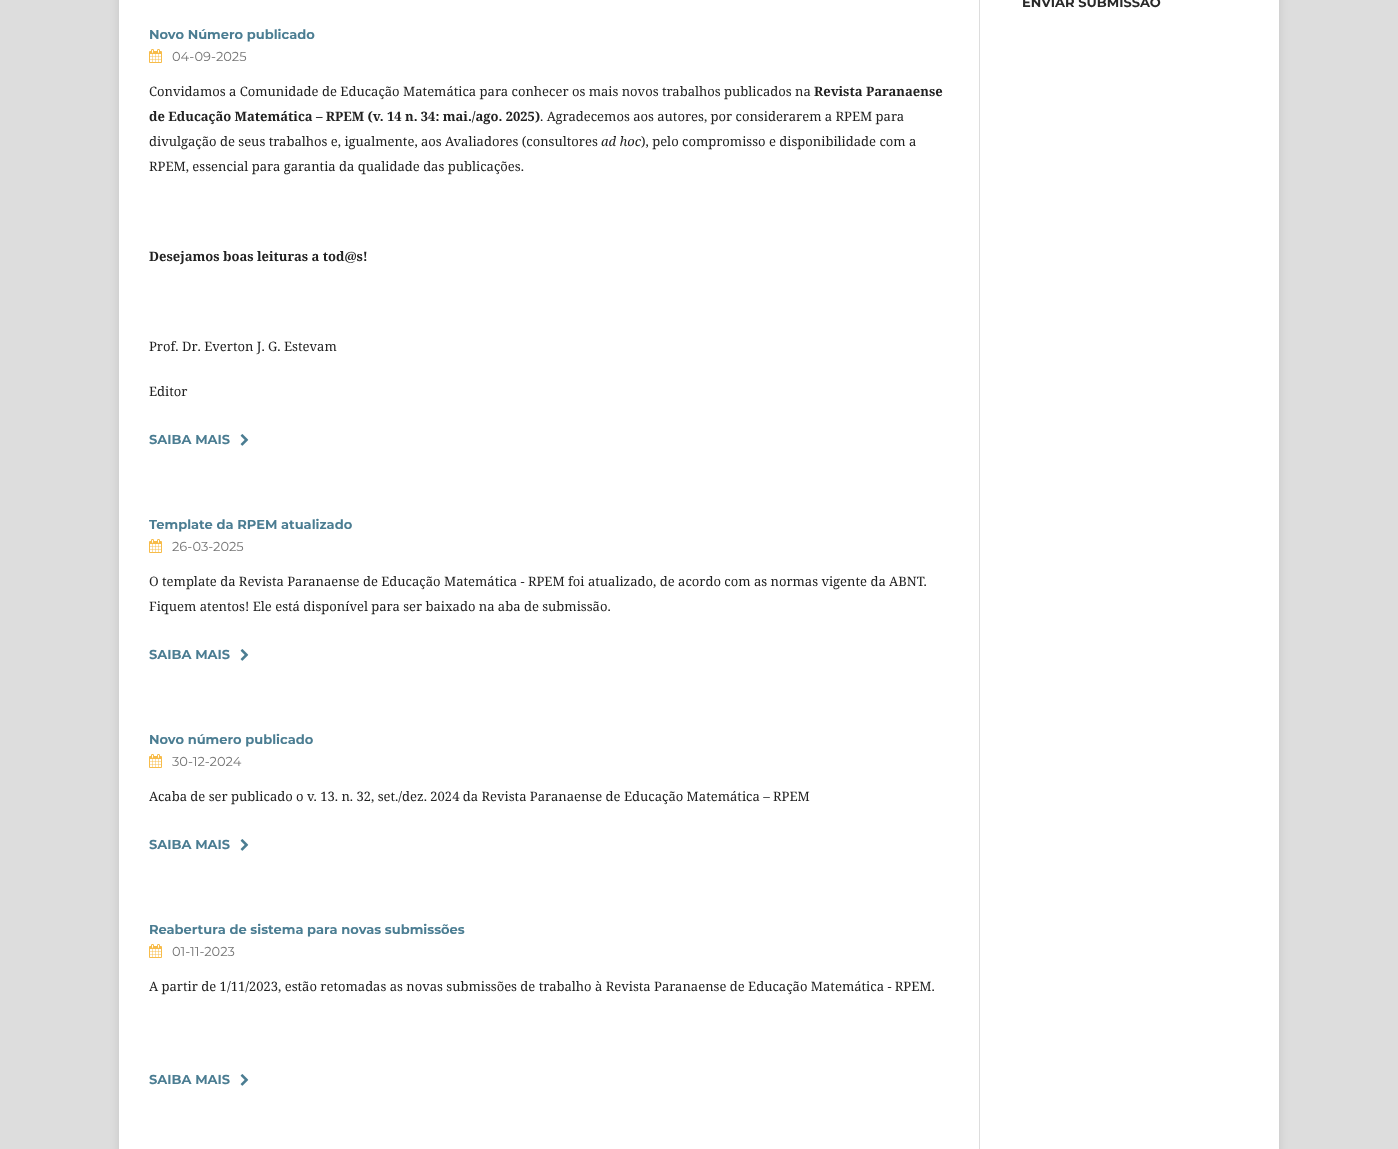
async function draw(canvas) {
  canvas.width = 1398;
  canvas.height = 1149;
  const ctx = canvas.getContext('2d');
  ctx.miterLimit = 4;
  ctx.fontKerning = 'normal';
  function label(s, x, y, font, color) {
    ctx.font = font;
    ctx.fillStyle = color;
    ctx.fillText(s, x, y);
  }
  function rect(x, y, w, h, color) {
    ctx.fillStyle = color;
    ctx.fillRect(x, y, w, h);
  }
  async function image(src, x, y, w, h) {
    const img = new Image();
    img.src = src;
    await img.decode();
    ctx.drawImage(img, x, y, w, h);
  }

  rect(0, 0, 1398, 1149, '#ddd');
  ctx.fillStyle = '#0000001a';
  ctx.filter = 'blur(5px)';
  ctx.beginPath();
  ctx.rect(119, -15, 1160, 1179);
  ctx.fill();
  ctx.filter = 'none';
  rect(119, 0, 1160, 1149, '#fff');
  rect(979, 0, 1, 1149, '#ddd');
  label('ENVIAR SUBMISSÃO', 1022, 7, 'bold 13.02px Montserrat', '#292929');
  label('Novo Número publicado', 149, 39, 'bold 13.02px Montserrat', '#4b7d92');
  await image('assets/img1.png', 149, 49, 13, 14);
  label('04-09-2025', 172, 61, '13.02px Montserrat', '#757575');
  label('Convidamos a Comunidade de Educação Matemática para conhecer os mais novos trabalhos publicados na', 149, 96, '13.02px Noto Serif', '#212121');
  label('Revista Paranaense', 814, 96, 'bold 13.02px Noto Serif', '#212121');
  label('de Educação Matemática – RPEM (v. 14 n. 34: mai./ago. 2025)', 149, 121, 'bold 13.02px Noto Serif', '#212121');
  label('. Agradecemos aos autores, por considerarem a RPEM para', 540, 121, '13.02px Noto Serif', '#212121');
  label('divulgação de seus trabalhos e, igualmente, aos Avaliadores (consultores', 149, 146, '13.02px Noto Serif', '#212121');
  label('ad hoc', 601, 146, 'italic 13.02px Noto Serif', '#212121');
  label('), pelo compromisso e disponibilidade com a', 641, 146, '13.02px Noto Serif', '#212121');
  label('RPEM, essencial para garantia da qualidade das publicações.', 149, 171, '13.02px Noto Serif', '#212121');
  label('Desejamos boas leituras a tod@s!', 149, 261, 'bold 13.02px Noto Serif', '#212121');
  label('Prof. Dr. Everton J. G. Estevam', 149, 351, '13.02px Noto Serif', '#212121');
  label('Editor', 149, 396, '13.02px Noto Serif', '#212121');
  label('SAIBA MAIS', 149, 444, 'bold 13.02px Montserrat', '#4b7d92');
  await image('assets/img2.png', 240, 434, 9, 12);
  label('Template da RPEM atualizado', 149, 529, 'bold 13.02px Montserrat', '#4b7d92');
  await image('assets/img1.png', 149, 539, 13, 14);
  label('26-03-2025', 172, 551, '13.02px Montserrat', '#757575');
  label('O template da Revista Paranaense de Educação Matemática - RPEM foi atualizado, de acordo com as normas vigente da ABNT.', 149, 586, '13.02px Noto Serif', '#212121');
  label('Fiquem atentos! Ele está disponível para ser baixado na aba de submissão.', 149, 611, '13.02px Noto Serif', '#212121');
  label('SAIBA MAIS', 149, 659, 'bold 13.02px Montserrat', '#4b7d92');
  await image('assets/img2.png', 240, 649, 9, 12);
  label('Novo número publicado', 149, 744, 'bold 13.02px Montserrat', '#4b7d92');
  await image('assets/img1.png', 149, 754, 13, 14);
  label('30-12-2024', 172, 766, '13.02px Montserrat', '#757575');
  label('Acaba de ser publicado o v. 13. n. 32, set./dez. 2024 da Revista Paranaense de Educação Matemática – RPEM', 149, 801, '13.02px Noto Serif', '#212121');
  label('SAIBA MAIS', 149, 849, 'bold 13.02px Montserrat', '#4b7d92');
  await image('assets/img2.png', 240, 839, 9, 12);
  label('Reabertura de sistema para novas submissões', 149, 934, 'bold 13.02px Montserrat', '#4b7d92');
  await image('assets/img1.png', 149, 944, 13, 14);
  label('01-11-2023', 172, 956, '13.02px Montserrat', '#757575');
  label('A partir de 1/11/2023, estão retomadas as novas submissões de trabalho à Revista Paranaense de Educação Matemática - RPEM.', 149, 991, '13.02px Noto Serif', '#212121');
  label('SAIBA MAIS', 149, 1084, 'bold 13.02px Montserrat', '#4b7d92');
  await image('assets/img2.png', 240, 1074, 9, 12);
}

draw(document.querySelector('canvas'));
